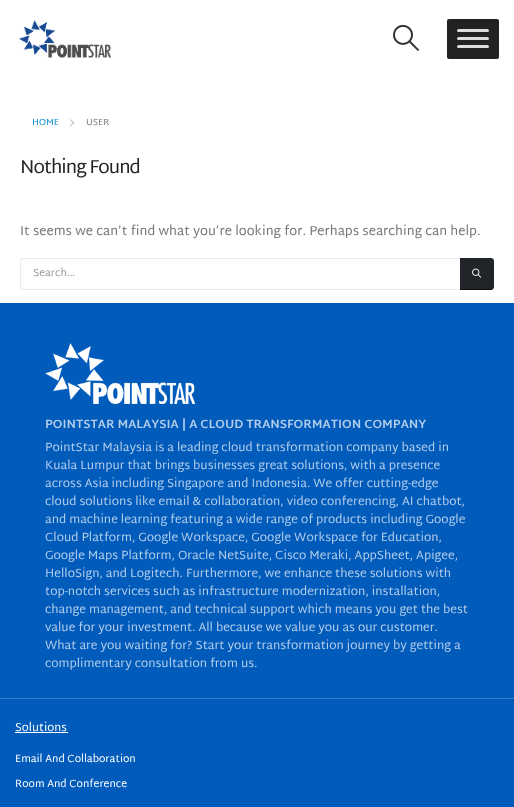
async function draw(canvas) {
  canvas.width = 514;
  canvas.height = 807;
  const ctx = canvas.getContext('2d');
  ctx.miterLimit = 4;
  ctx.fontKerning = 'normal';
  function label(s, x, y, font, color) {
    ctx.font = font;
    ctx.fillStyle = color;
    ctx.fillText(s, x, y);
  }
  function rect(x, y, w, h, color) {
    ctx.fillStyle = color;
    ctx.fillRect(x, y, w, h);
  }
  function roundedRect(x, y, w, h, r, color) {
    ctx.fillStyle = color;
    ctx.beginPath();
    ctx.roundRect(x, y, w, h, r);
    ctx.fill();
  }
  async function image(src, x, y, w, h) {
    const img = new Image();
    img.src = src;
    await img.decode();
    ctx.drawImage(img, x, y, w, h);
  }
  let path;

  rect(0, 0, 514, 807, '#fff');
  await image('assets/img1.png', 19, 20, 93, 38);
  await image('assets/img2.png', 393, 24, 26, 27);
  roundedRect(447, 19, 52, 40, 2, '#222');
  roundedRect(457, 29, 32, 3, 1.5, '#ddd');
  roundedRect(457, 37, 32, 3, 1.5, '#ddd');
  roundedRect(457, 45, 32, 3, 1.5, '#ddd');
  label('HOME', 32, 125, '9px Martel Sans', '#08c');
  await image('assets/img3.png', 70, 119, 5, 8);
  label('USER', 86, 125, '9px Martel Sans', '#777');
  ctx.letterSpacing = '-1px';
  label('Nothing Found', 20, 173, '18.75px Martel Sans', '#212529');
  ctx.letterSpacing = '0px';
  label('It seems we can’t find what you’re looking for. Perhaps searching can help.', 20, 235, '13px Martel Sans', '#777');
  ctx.beginPath();
  ctx.roundRect(20.5, 258.5, 440, 31, [2.5, 0, 0, 2.5]);
  ctx.strokeStyle = '#ebebeb';
  ctx.stroke();
  label('Search…', 33, 276, '10.5px Martel Sans', '#999');
  ctx.fillStyle = '#212529';
  ctx.beginPath();
  ctx.roundRect(460, 258, 34, 32, [0, 4, 4, 0]);
  ctx.fill();
  path = new Path2D('M460 258L461 259H490C491 259 491.5 259.5 492 260L493 259C492 258.5 491 258 490 258Z');
  ctx.fill(path);
  path = new Path2D('M494 286V262C494 261 493.5 260 493 259L492 260C492.5 260.5 493 261 493 262V286C493 287 492.5 287.5 492 288L493 289C493.5 288 494 287 494 286Z');
  ctx.fill(path);
  ctx.fillStyle = '#0b0c0d';
  path = new Path2D('M490 290C491 290 492 289.5 493 289L492 288C491.5 288.5 491 289 490 289H461L460 290Z');
  ctx.fill(path);
  ctx.fillStyle = '#212529';
  path = new Path2D('M460 258V290L461 289V259Z');
  ctx.fill(path);
  await image('assets/img4.png', 472, 268, 10, 10);
  rect(0, 303, 514, 395, '#005bbb');
  await image('assets/img5.png', 45, 343, 150, 61);
  label('POINTSTAR MALAYSIA | A CLOUD TRANSFORMATION COMPANY', 45, 428, 'bold 12px Martel Sans', '#b3ceeb');
  label('PointStar Malaysia is a leading cloud transformation company based in', 45, 451, '12px Martel Sans', '#b3ceeb');
  label('Kuala Lumpur that brings businesses great solutions, with a presence', 45, 469, '12px Martel Sans', '#b3ceeb');
  label('across Asia including Singapore and Indonesia. We offer cutting-edge', 45, 487, '12px Martel Sans', '#b3ceeb');
  label('cloud solutions like email & collaboration, video conferencing, AI chatbot,', 45, 505, '12px Martel Sans', '#b3ceeb');
  label('and machine learning featuring a wide range of products including Google', 45, 523, '12px Martel Sans', '#b3ceeb');
  label('Cloud Platform, Google Workspace, Google Workspace for Education,', 45, 541, '12px Martel Sans', '#b3ceeb');
  label('Google Maps Platform, Oracle NetSuite, Cisco Meraki, AppSheet, Apigee,', 45, 559, '12px Martel Sans', '#b3ceeb');
  label('HelloSign, and Logitech. Furthermore, we enhance these solutions with', 45, 577, '12px Martel Sans', '#b3ceeb');
  label('top-notch services such as infrastructure modernization, installation,', 45, 595, '12px Martel Sans', '#b3ceeb');
  label('change management, and technical support which means you get the best', 45, 613, '12px Martel Sans', '#b3ceeb');
  label('value for your investment. All because we value you as our customer.', 45, 631, '12px Martel Sans', '#b3ceeb');
  label('What are you waiting for? Start your transformation journey by getting a', 45, 649, '12px Martel Sans', '#b3ceeb');
  label('complimentary consultation from us.', 45, 667, '12px Martel Sans', '#b3ceeb');
  rect(0, 699, 514, 108, '#005bbb');
  rect(0, 698, 514, 1, '#337cc9');
  label('Solutions', 15, 731, '11.5px Martel Sans', '#fff');
  rect(15, 732, 53, 1, '#fff');
  label('Email And Collaboration', 15, 762, '10.5px Martel Sans', '#fff');
  label('Room And Conference', 15, 787, '10.5px Martel Sans', '#fff');
}

draw(document.querySelector('canvas'));
